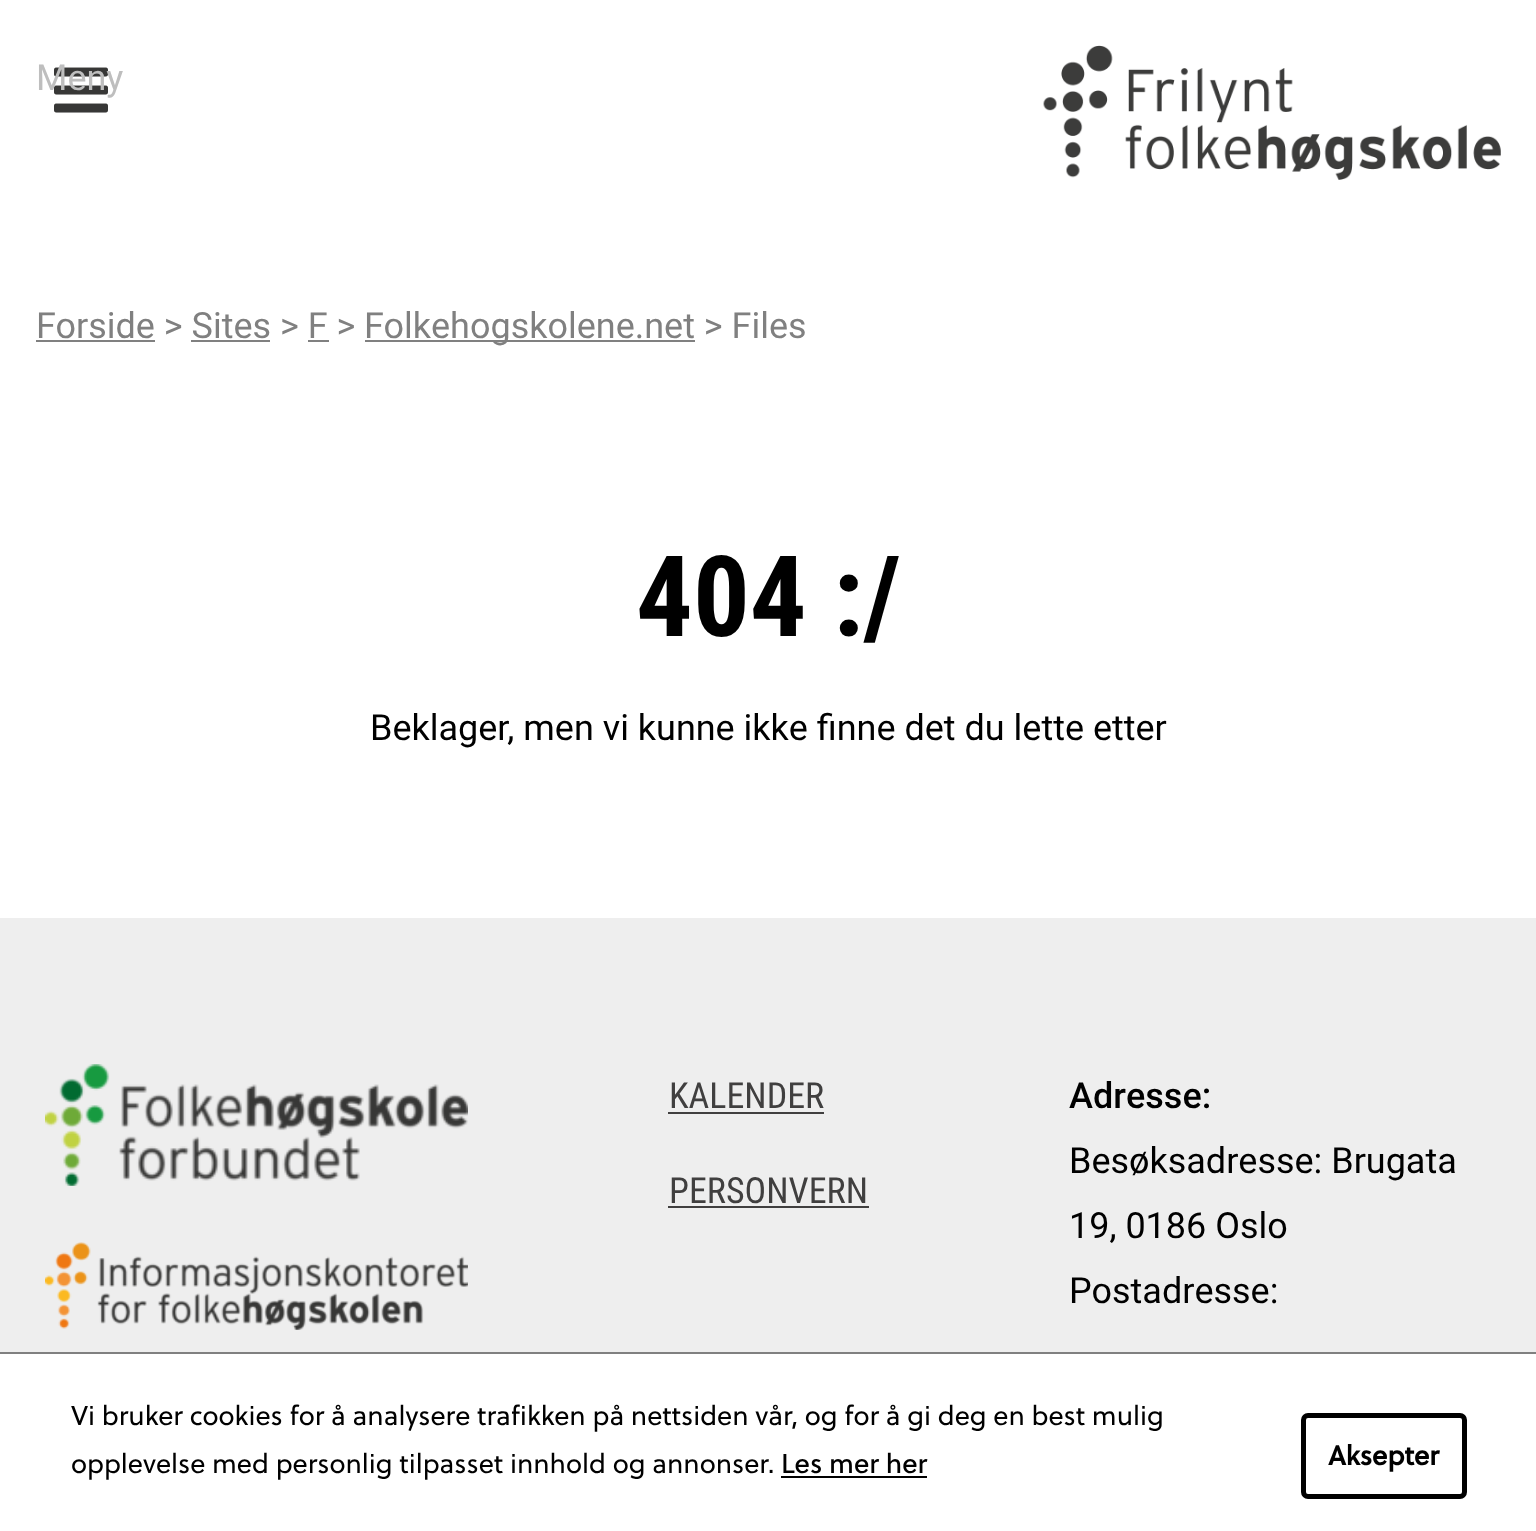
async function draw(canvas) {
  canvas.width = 1536;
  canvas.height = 1531;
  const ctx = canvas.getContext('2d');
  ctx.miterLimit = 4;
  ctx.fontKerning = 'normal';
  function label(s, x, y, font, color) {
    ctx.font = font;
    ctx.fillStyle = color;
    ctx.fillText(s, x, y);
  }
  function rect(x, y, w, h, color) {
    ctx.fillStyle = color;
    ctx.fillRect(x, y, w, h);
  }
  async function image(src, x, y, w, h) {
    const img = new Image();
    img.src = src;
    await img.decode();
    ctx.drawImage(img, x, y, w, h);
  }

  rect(0, 0, 1536, 1531, '#fff');
  await image('assets/img1.png', 54, 67, 54, 46);
  label('Meny', 36, 90, '36px Roboto', '#bebebe');
  await image('assets/img2.png', 1043, 45, 458, 135);
  label('Forside > Sites > F >', 36, 338, '36px Roboto', '#808080');
  rect(36, 340, 119, 2, '#808080');
  rect(365, 340, 330, 2, '#808080');
  label('Folkehogskolene.net > Files', 364, 338, '36px Roboto', '#808080');
  rect(191, 340, 79, 2, '#808080');
  rect(308, 340, 21, 2, '#808080');
  label('404 :/', 636, 636, 'bold 112.5px Roboto Condensed', '#000');
  label('Beklager, men vi kunne ikke finne det du lette etter', 370, 740, '36px Roboto', '#000');
  rect(0, 918, 1536, 434, '#eee');
  await image('assets/img3.png', 45, 1064, 423, 122);
  await image('assets/img4.png', 45, 1242, 423, 88);
  label('KALENDER', 669, 1108, '36px Roboto Condensed', '#403f3f');
  rect(668, 1112, 156, 2, '#403f3f');
  label('PERSONVERN', 669, 1203, '36px Roboto Condensed', '#403f3f');
  rect(668, 1206, 201, 2, '#403f3f');
  label('Adresse:', 1069, 1108, '500 36px Roboto', '#000');
  label('Besøksadresse: Brugata', 1069, 1173, '36px Roboto', '#000');
  label('19, 0186 Oslo', 1069, 1238, '36px Roboto', '#000');
  label('Postadresse:', 1069, 1303, '36px Roboto', '#000');
  rect(0, 1352, 1536, 2, '#808080');
  label('Vi bruker cookies for å analysere trafikken på nettsiden vår, og for å gi deg en best mulig', 71, 1425, '27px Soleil', '#000');
  label('opplevelse med personlig tilpasset innhold og annonser.', 71, 1473, '27px Soleil', '#000');
  label('Les mer her', 781, 1473, '27px "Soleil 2"', '#000');
  rect(781, 1476, 146, 2, '#000');
  ctx.beginPath();
  ctx.roundRect(1303.5, 1415.5, 161, 81, 4.5);
  ctx.strokeStyle = '#000';
  ctx.lineWidth = 5;
  ctx.stroke();
  label('Aksepter', 1328, 1465, 'bold 27px Soleil', '#000');
}

draw(document.querySelector('canvas'));
